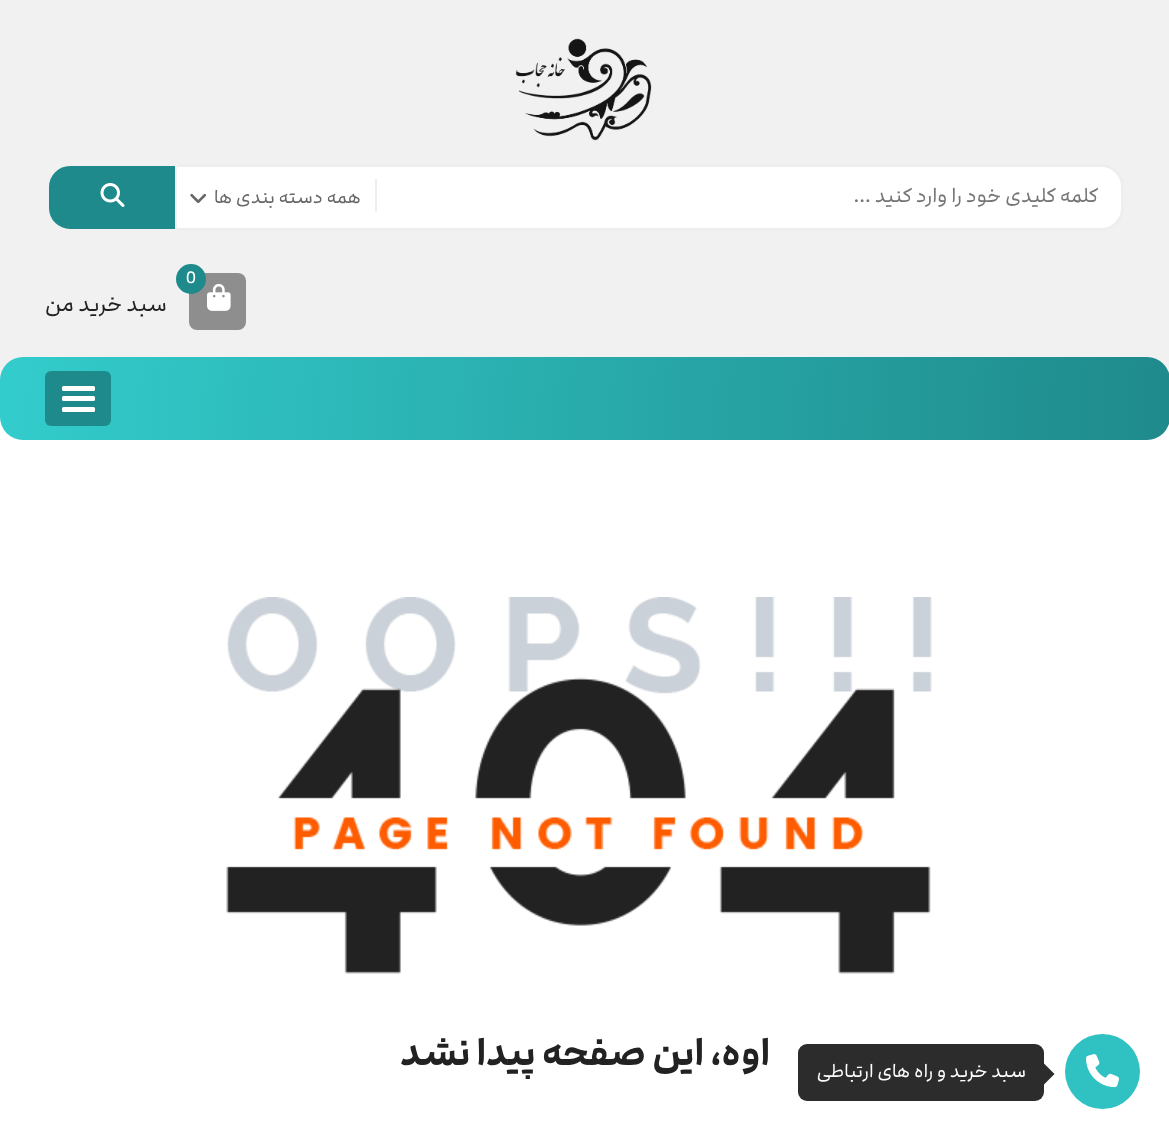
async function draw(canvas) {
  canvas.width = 1169;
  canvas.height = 1138;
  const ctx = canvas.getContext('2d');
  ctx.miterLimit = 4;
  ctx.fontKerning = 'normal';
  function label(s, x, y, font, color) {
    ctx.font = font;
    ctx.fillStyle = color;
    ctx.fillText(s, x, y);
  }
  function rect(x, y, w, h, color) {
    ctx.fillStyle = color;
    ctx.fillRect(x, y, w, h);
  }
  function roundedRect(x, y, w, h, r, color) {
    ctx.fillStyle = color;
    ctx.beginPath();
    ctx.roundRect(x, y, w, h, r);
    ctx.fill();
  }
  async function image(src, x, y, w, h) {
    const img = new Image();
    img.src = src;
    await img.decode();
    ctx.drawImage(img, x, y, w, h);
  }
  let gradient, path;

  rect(0, 0, 1169, 1138, '#fff');
  rect(0, 0, 1169, 380, '#f1f1f1');
  await image('assets/img1.png', 515, 38, 137, 103);
  ctx.fillStyle = '#fff';
  ctx.beginPath();
  ctx.roundRect(48.5, 165.5, 1074, 64, 21.5);
  ctx.fill();
  ctx.strokeStyle = '#eee';
  ctx.lineWidth = 3;
  ctx.stroke();
  ctx.direction = 'rtl';
  label('کلمه کلیدی خود را وارد کنید ...', 1098, 202, '19.5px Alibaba', '#757575');
  rect(375, 179, 2, 33, '#eee');
  label('همه دسته بندی ها', 361, 203, '18px Alibaba', '#666');
  await image('assets/img2.png', 190, 193, 16, 10);
  ctx.fillStyle = '#1f8a8b';
  ctx.beginPath();
  ctx.roundRect(48, 165, 128, 65, [22, 0, 0, 22]);
  ctx.fill();
  ctx.strokeStyle = '#f1f1f1';
  ctx.lineWidth = 2;
  ctx.stroke();
  await image('assets/img3.png', 100, 183, 25, 24);
  roundedRect(189, 273, 57, 57, 8, '#8e8e8e');
  ctx.fillStyle = '#1f8a8b';
  ctx.beginPath();
  ctx.arc(191, 279, 15, 0, 2 * Math.PI);
  ctx.fill();
  ctx.direction = 'ltr';
  label('0', 186, 283, '18px Alibaba', '#fff');
  await image('assets/img4.png', 207, 283, 24, 28);
  ctx.direction = 'rtl';
  label('سبد خرید من', 167, 311, '21px Alibaba', '#222');
  gradient = ctx.createLinearGradient(-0.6, 368, 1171, 429);
  gradient.addColorStop(0, '#3cc');
  gradient.addColorStop(1, '#1f8a8b');
  ctx.fillStyle = gradient;
  ctx.beginPath();
  ctx.roundRect(0, 357, 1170, 83, 23);
  ctx.fill();
  roundedRect(45, 371, 66, 55, 6, '#1f8a8b');
  roundedRect(62, 386, 33, 5, 1.5, '#fff');
  roundedRect(62, 396, 33, 5, 1.5, '#fff');
  roundedRect(62, 407, 33, 5, 1.5, '#fff');
  await image('assets/img5.png', 226, 597, 706, 377);
  label('اوه، این صفحه پیدا نشد', 770, 1065, 'bold 36px Alibaba', '#222');
  ctx.fillStyle = '#30c1c2';
  ctx.beginPath();
  ctx.arc(1102.5, 1071.5, 37.5, 0, 2 * Math.PI);
  ctx.fill();
  await image('assets/img6.png', 1086, 1054, 33, 34);
  roundedRect(798, 1044, 246, 57, 9, '#2c2c2c');
  path = new Path2D('M1039.5 1089V1059L1054.5 1074Z');
  ctx.fill(path);
  label('سبد خرید و راه های ارتباطی', 1026, 1077, '18px Alibaba', '#fff');
}

draw(document.querySelector('canvas'));
